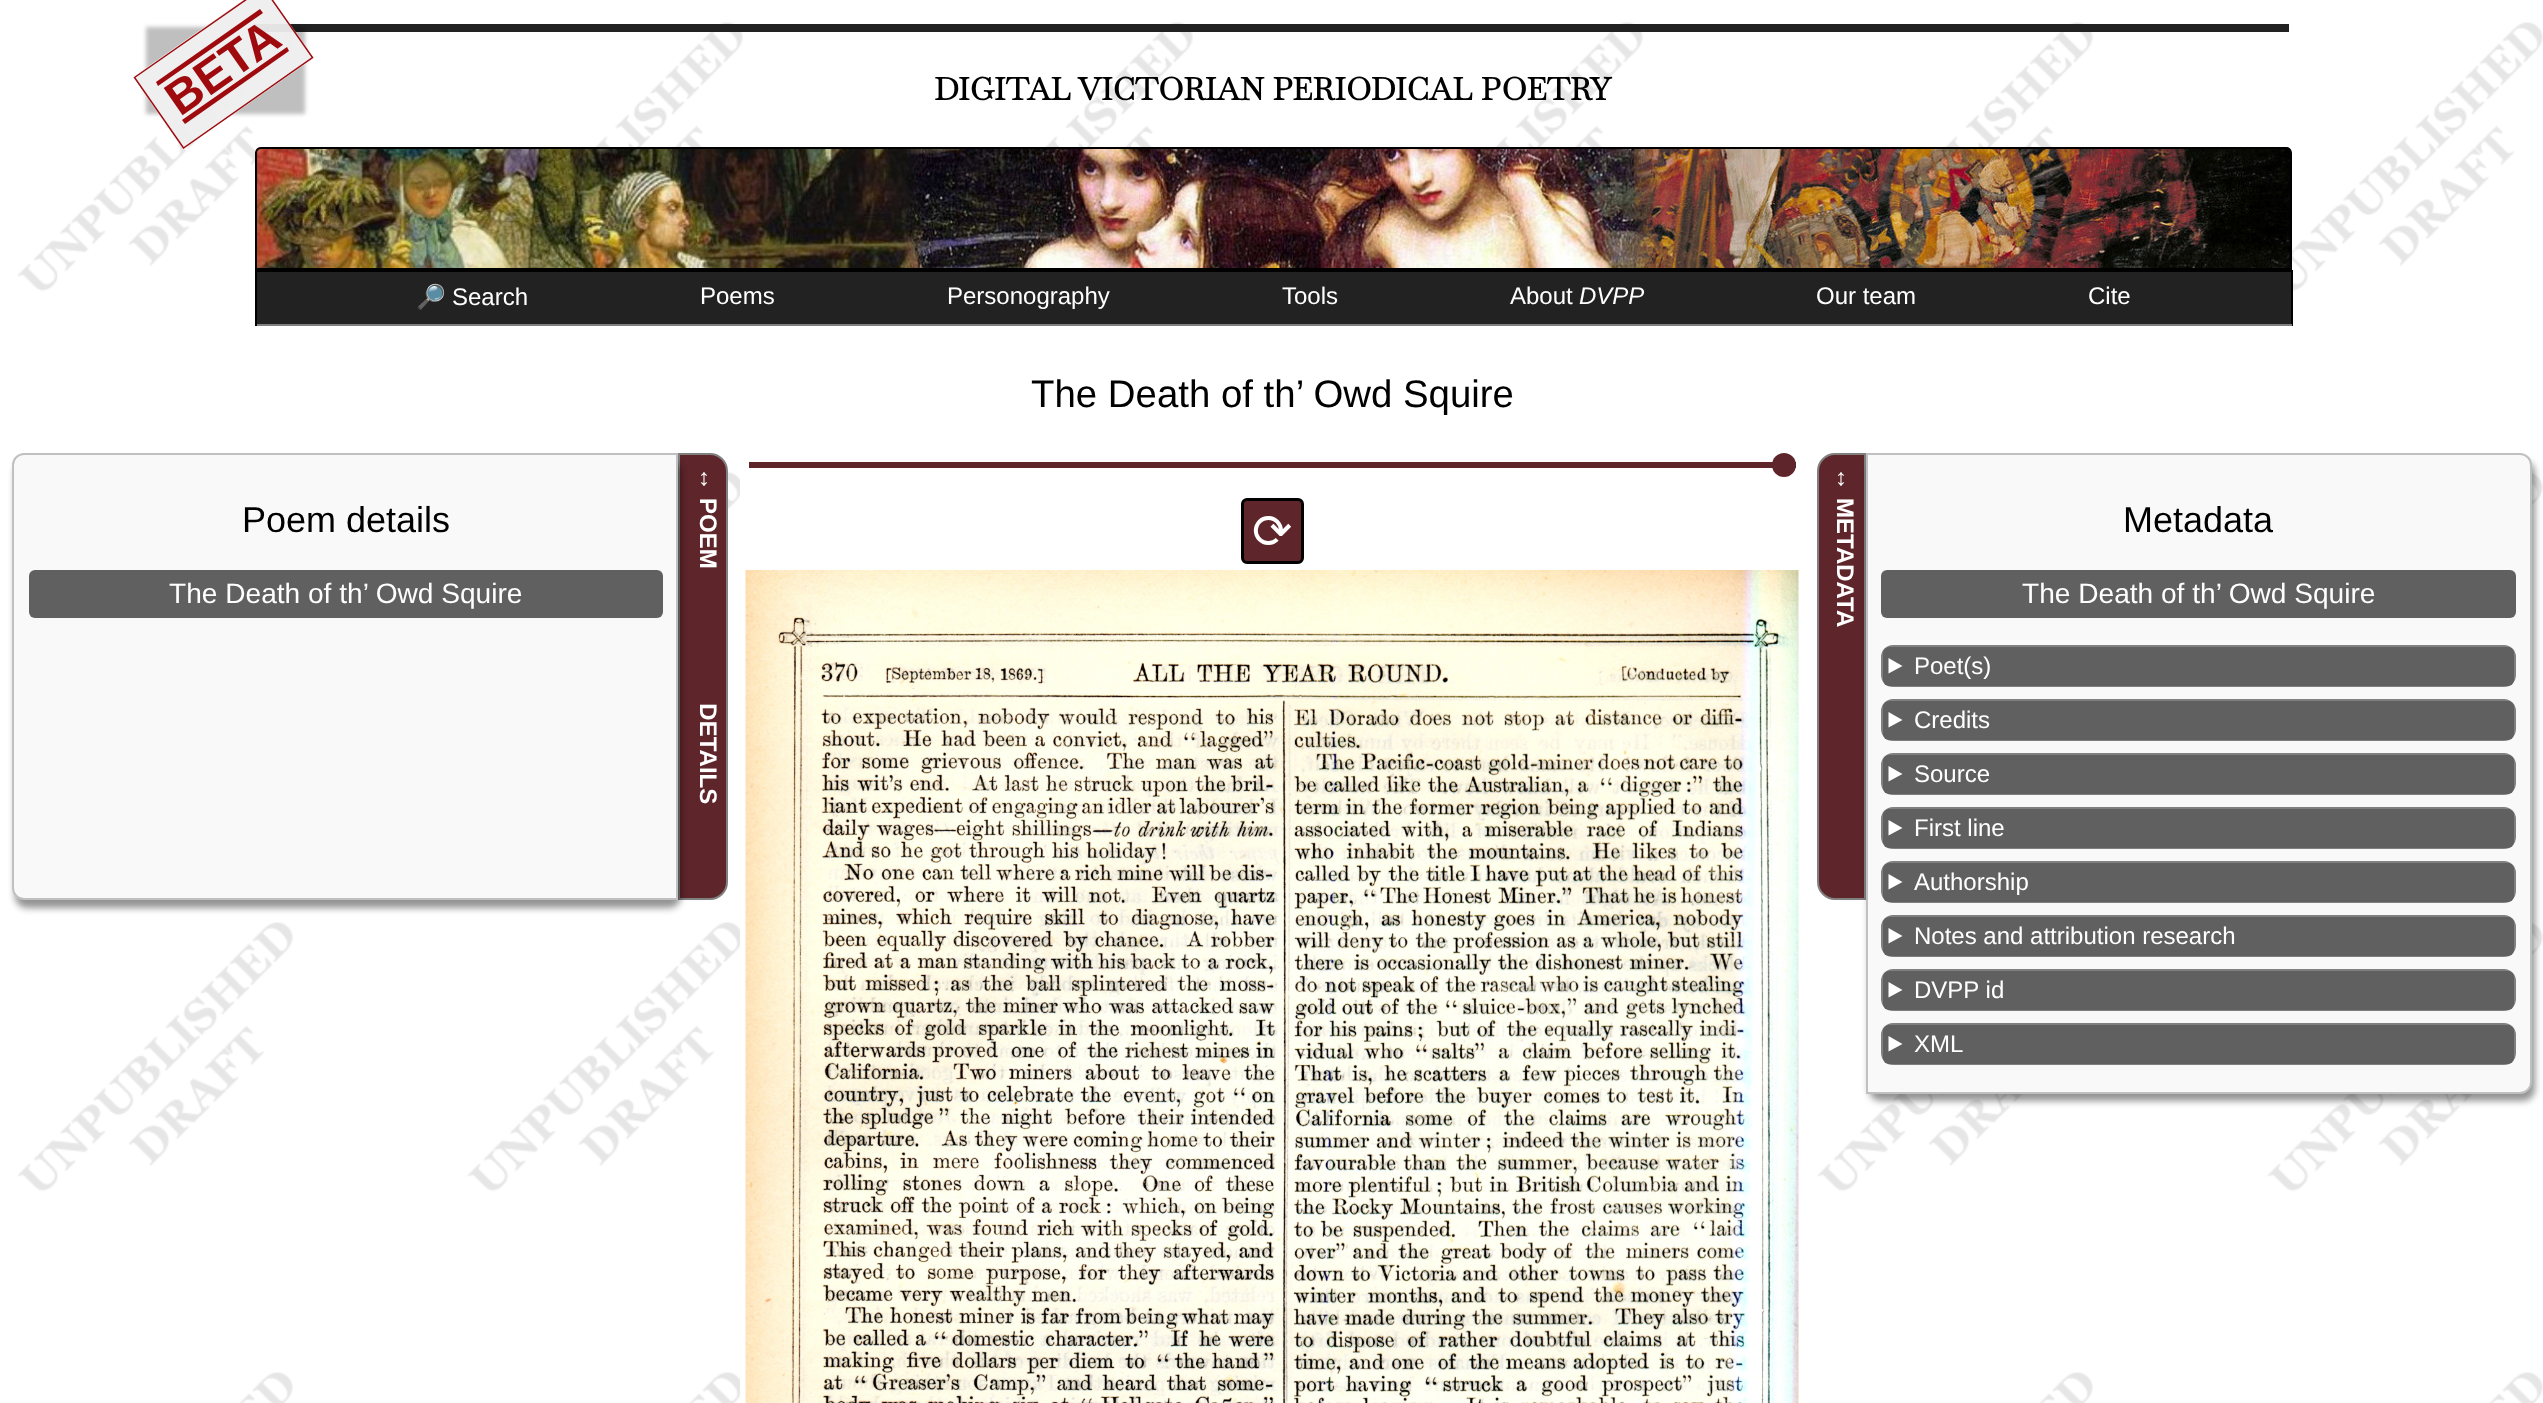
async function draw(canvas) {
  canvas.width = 2543;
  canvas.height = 1403;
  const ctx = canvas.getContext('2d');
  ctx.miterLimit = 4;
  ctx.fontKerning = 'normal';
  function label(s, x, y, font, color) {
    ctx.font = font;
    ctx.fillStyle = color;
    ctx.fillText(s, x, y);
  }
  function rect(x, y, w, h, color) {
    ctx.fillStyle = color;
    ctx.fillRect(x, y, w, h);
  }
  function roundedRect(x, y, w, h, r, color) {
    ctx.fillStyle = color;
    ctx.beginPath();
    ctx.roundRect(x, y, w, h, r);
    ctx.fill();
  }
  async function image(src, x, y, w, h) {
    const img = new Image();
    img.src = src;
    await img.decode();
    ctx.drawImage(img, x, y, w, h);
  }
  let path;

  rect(0, 0, 2543, 1403, '#fff');
  await image('assets/img1.png', 18, 22, 2525, 1381);
  rect(255, 24, 2034, 8, '#222');
  ctx.save();
  path = new Path2D('M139 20H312V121H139ZM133.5 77.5L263.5-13.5L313.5 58L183.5 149Z');
  ctx.clip(path, 'evenodd');
  ctx.fillStyle = '#00000040';
  ctx.filter = 'blur(2px)';
  ctx.beginPath();
  ctx.rect(146, 27, 159, 87);
  ctx.fill();
  ctx.filter = 'none';
  ctx.restore();
  await image('assets/img2.png', 256, 147, 2035, 121);
  ctx.beginPath();
  ctx.roundRect(256, 148, 2035, 121, [5, 5, 0, 0]);
  ctx.strokeStyle = '#000';
  ctx.lineWidth = 2;
  ctx.stroke();
  ctx.fillStyle = '#eeeeeef2';
  path = new Path2D('M133 77L263-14L314 58L183 149Z');
  ctx.fill(path);
  path = new Path2D('M134.5 77.5L263.5-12.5L312.5 57.5L183.5 148Z');
  ctx.strokeStyle = '#9e0a0e';
  ctx.lineWidth = 1.5;
  ctx.stroke(path);
  ctx.fillStyle = '#9e0a0e';
  path = new Path2D('M182 120L287 47L289 51L185 124Z');
  ctx.fill(path);
  path = new Path2D('M156 82L260 9L263 13L158 86Z');
  ctx.fill(path);
  ctx.font = 'bold 48px Liberation Sans';
  ctx.save();
  ctx.translate(180, 117);
  ctx.rotate(-35 * Math.PI / 180);
  ctx.fillText('BETA', 0, 0);
  ctx.restore();
  label('DIGITAL VICTORIAN PERIODICAL POETRY', 934, 100, 'bold 31.2px Baskervville', '#000');
  rect(257, 272, 2034, 52, '#222');
  rect(255, 270, 2037, 2, '#000');
  rect(2291, 270, 2, 56, '#000');
  rect(255, 324, 2037, 2, '#808080');
  rect(255, 270, 2, 56, '#000');
  label('🔎', 416, 305, '24px Noto Color Emoji', '#fff');
  label('Search', 452, 305, '24px Liberation Sans', '#fff');
  label('Poems', 700, 304, '24px Liberation Sans', '#fff');
  label('Personography', 947, 304, '24px Liberation Sans', '#fff');
  label('Tools', 1282, 304, '24px Liberation Sans', '#fff');
  label('About', 1510, 304, '24px Liberation Sans', '#fff');
  label('DVPP', 1579, 304, 'italic 24px Liberation Sans', '#fff');
  label('Our team', 1816, 304, '24px Liberation Sans', '#fff');
  label('Cite', 2088, 304, '24px Liberation Sans', '#fff');
  label('The Death of th’ Owd Squire', 1031, 407, '38.4px Liberation Sans', '#000');
  ctx.fillStyle = '#5e252b';
  ctx.beginPath();
  ctx.roundRect(679, 454, 48, 445, [0, 17, 17, 0]);
  ctx.fill();
  ctx.strokeStyle = '#808080';
  ctx.lineWidth = 2;
  ctx.stroke();
  ctx.fillStyle = '#0000006b';
  ctx.filter = 'blur(3.5px)';
  ctx.beginPath();
  ctx.roundRect(15, 461, 666, 447, 12);
  ctx.fill();
  ctx.filter = 'none';
  ctx.fillStyle = '#f9f9f9';
  ctx.beginPath();
  ctx.roundRect(13, 454, 664, 445, [11, 0, 0, 11]);
  ctx.fill();
  ctx.strokeStyle = '#c0c0c0';
  ctx.stroke();
  label('Poem details', 242, 532, '36px Liberation Sans', '#000');
  roundedRect(29, 570, 634, 48, 6, '#606060');
  label('The Death of th’ Owd Squire', 169, 603, '28.1px Liberation Sans', '#fff');
  ctx.font = 'bold 24px Liberation Sans';
  ctx.save();
  ctx.translate(700, 467);
  ctx.rotate(90 * Math.PI / 180);
  ctx.fillText('↔', 0, 0);
  ctx.restore();
  ctx.wordSpacing = '128px';
  ctx.save();
  ctx.translate(700, 498);
  ctx.rotate(90 * Math.PI / 180);
  ctx.fillText('POEM DETAILS', 0, 0);
  ctx.restore();
  rect(740, 472, 903, 931, '#fff');
  rect(749, 462, 1047, 6, '#5e252b');
  ctx.beginPath();
  ctx.arc(1784, 465, 12, 0, 2 * Math.PI);
  ctx.fill();
  ctx.beginPath();
  ctx.roundRect(1242.5, 499.5, 60, 63, 4.5);
  ctx.fill();
  ctx.strokeStyle = '#000';
  ctx.lineWidth = 3;
  ctx.stroke();
  ctx.wordSpacing = '0px';
  label('⟳', 1252, 548, '48px DejaVu Sans', '#fff');
  await image('assets/img3.png', 745, 570, 1054, 833);
  ctx.fillStyle = '#5e252b';
  ctx.beginPath();
  ctx.roundRect(1818, 454, 47, 445, [17, 0, 0, 17]);
  ctx.fill();
  ctx.strokeStyle = '#808080';
  ctx.lineWidth = 2;
  ctx.stroke();
  ctx.font = 'bold 24px Liberation Sans';
  ctx.fillStyle = '#fff';
  ctx.save();
  ctx.translate(1837, 467);
  ctx.rotate(90 * Math.PI / 180);
  ctx.fillText('↔', 0, 0);
  ctx.restore();
  ctx.save();
  ctx.translate(1837, 498);
  ctx.rotate(90 * Math.PI / 180);
  ctx.fillText('METADATA', 0, 0);
  ctx.restore();
  ctx.fillStyle = '#0000006b';
  ctx.filter = 'blur(3.5px)';
  ctx.beginPath();
  ctx.roundRect(1869, 461, 666, 640, 12);
  ctx.fill();
  ctx.filter = 'none';
  ctx.fillStyle = '#f9f9f9';
  ctx.beginPath();
  ctx.roundRect(1867, 454, 664, 639, [0, 11, 11, 0]);
  ctx.fill();
  ctx.strokeStyle = '#c0c0c0';
  ctx.stroke();
  label('Metadata', 2123, 532, '36px Liberation Sans', '#000');
  roundedRect(1881, 570, 635, 48, 6, '#606060');
  label('The Death of th’ Owd Squire', 2022, 603, '28.1px Liberation Sans', '#fff');
  ctx.beginPath();
  ctx.roundRect(1882, 646, 633, 40, 11);
  ctx.strokeStyle = '#808080';
  ctx.stroke();
  roundedRect(1883, 647, 631, 39, 6, '#606060');
  ctx.fillStyle = '#fff';
  path = new Path2D('M1888.5 658L1902.5 666L1888.5 673.5Z');
  ctx.fill(path);
  label('Poet(s)', 1914, 674, '24px Liberation Sans', '#fff');
  ctx.beginPath();
  ctx.roundRect(1882, 700, 633, 40, 11);
  ctx.stroke();
  roundedRect(1883, 701, 631, 39, 6, '#606060');
  ctx.fillStyle = '#fff';
  path = new Path2D('M1888.5 712L1902.5 720L1888.5 727.5Z');
  ctx.fill(path);
  label('Credits', 1914, 728, '24px Liberation Sans', '#fff');
  ctx.beginPath();
  ctx.roundRect(1882, 754, 633, 40, 11);
  ctx.stroke();
  roundedRect(1883, 755, 631, 39, 6, '#606060');
  ctx.fillStyle = '#fff';
  path = new Path2D('M1888.5 766L1902.5 774L1888.5 781.5Z');
  ctx.fill(path);
  label('Source', 1914, 782, '24px Liberation Sans', '#fff');
  ctx.beginPath();
  ctx.roundRect(1882, 808, 633, 40, 11);
  ctx.stroke();
  roundedRect(1883, 809, 631, 39, 6, '#606060');
  ctx.fillStyle = '#fff';
  path = new Path2D('M1888.5 820L1902.5 828L1888.5 835.5Z');
  ctx.fill(path);
  label('First line', 1914, 836, '24px Liberation Sans', '#fff');
  ctx.beginPath();
  ctx.roundRect(1882, 862, 633, 40, 11);
  ctx.stroke();
  roundedRect(1883, 863, 631, 39, 6, '#606060');
  ctx.fillStyle = '#fff';
  path = new Path2D('M1888.5 874L1902.5 882L1888.5 889.5Z');
  ctx.fill(path);
  label('Authorship', 1914, 890, '24px Liberation Sans', '#fff');
  ctx.beginPath();
  ctx.roundRect(1882, 916, 633, 40, 11);
  ctx.stroke();
  roundedRect(1883, 917, 631, 39, 6, '#606060');
  ctx.fillStyle = '#fff';
  path = new Path2D('M1888.5 928L1902.5 936L1888.5 943.5Z');
  ctx.fill(path);
  label('Notes and attribution research', 1914, 944, '24px Liberation Sans', '#fff');
  ctx.beginPath();
  ctx.roundRect(1882, 970, 633, 40, 11);
  ctx.stroke();
  roundedRect(1883, 971, 631, 39, 6, '#606060');
  ctx.fillStyle = '#fff';
  path = new Path2D('M1888.5 982L1902.5 990L1888.5 997.5Z');
  ctx.fill(path);
  label('DVPP id', 1914, 998, '24px Liberation Sans', '#fff');
  ctx.beginPath();
  ctx.roundRect(1882, 1024, 633, 40, 11);
  ctx.stroke();
  roundedRect(1883, 1025, 631, 39, 6, '#606060');
  ctx.fillStyle = '#fff';
  path = new Path2D('M1888.5 1036L1902.5 1044L1888.5 1051.5Z');
  ctx.fill(path);
  label('XML', 1914, 1052, '24px Liberation Sans', '#fff');
}

draw(document.querySelector('canvas'));
